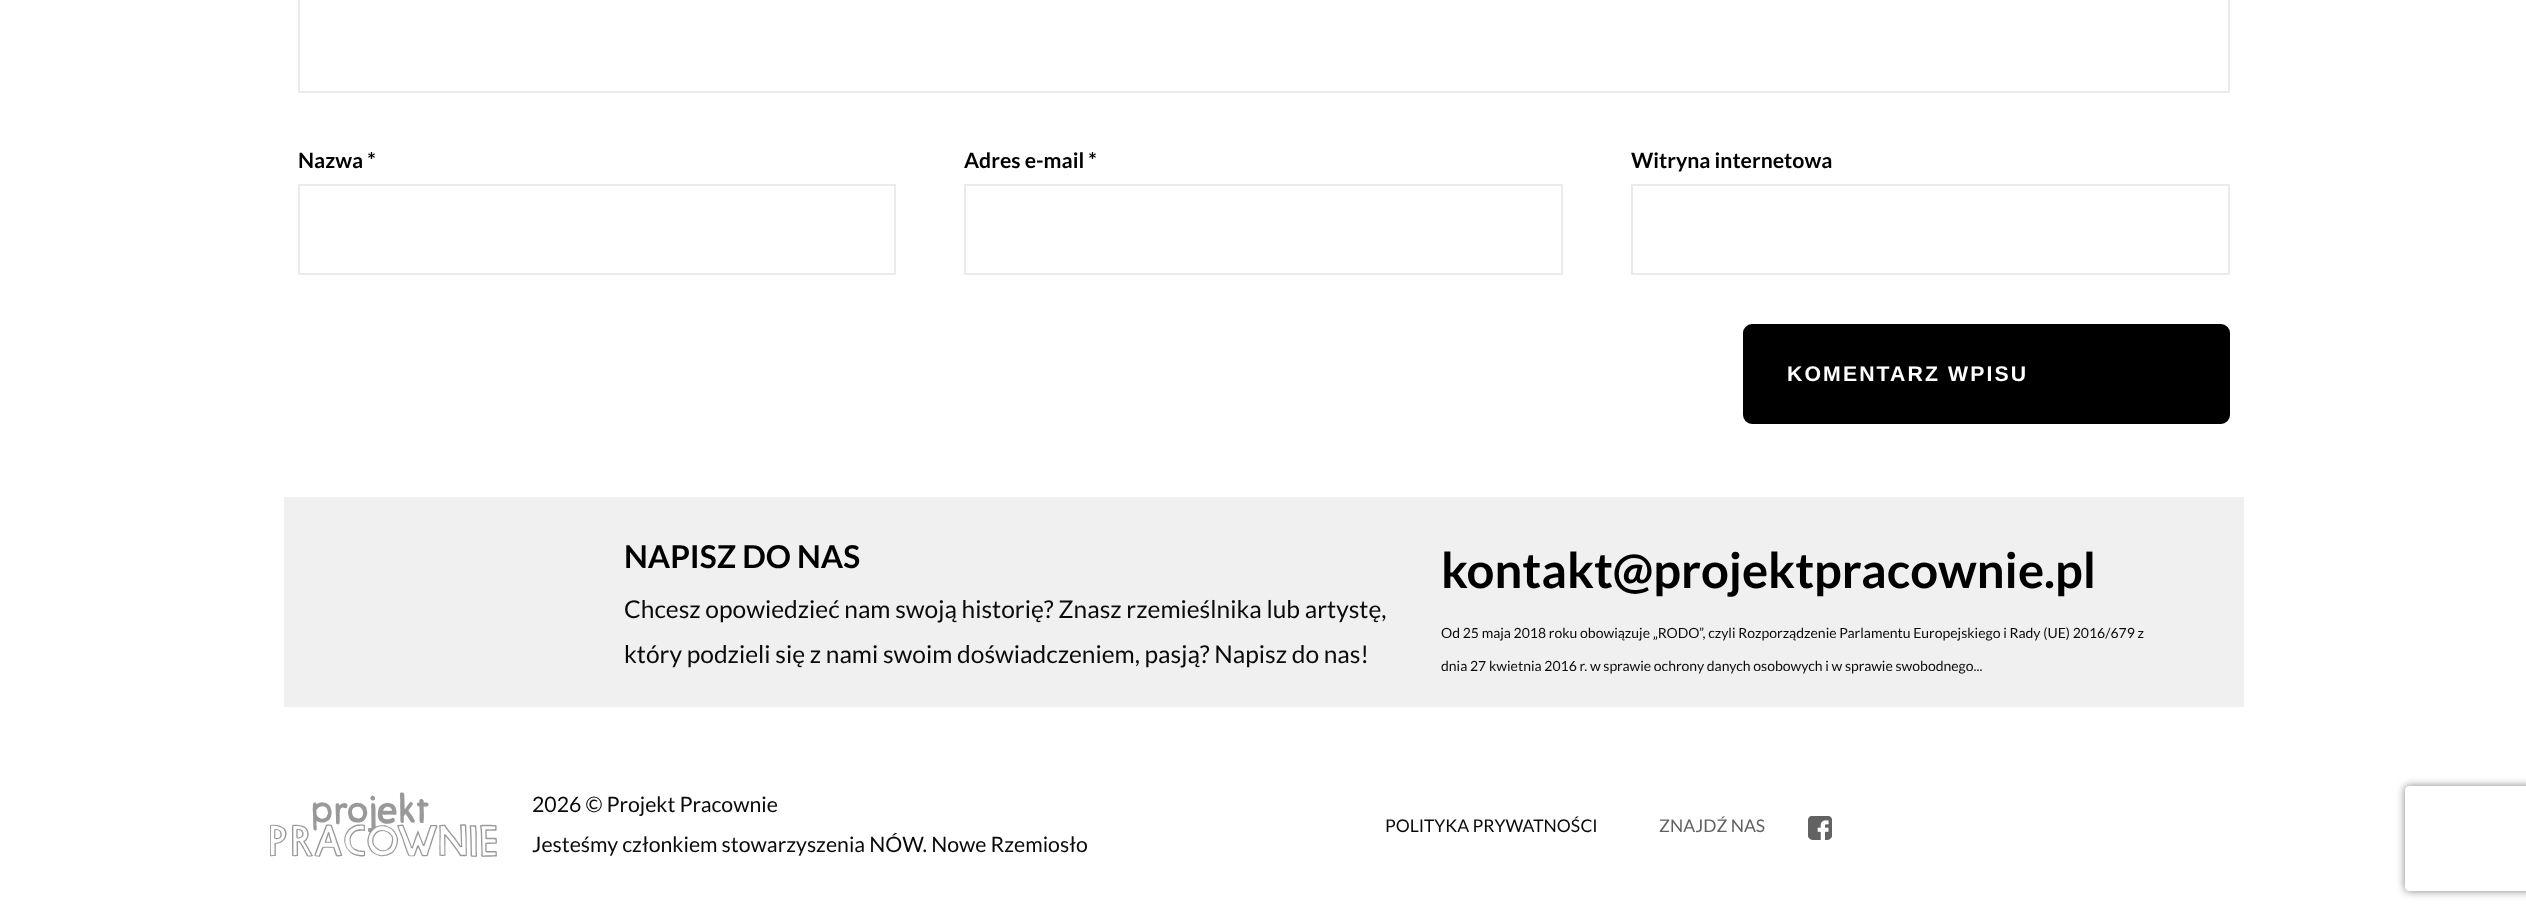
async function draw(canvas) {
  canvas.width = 2526;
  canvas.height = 914;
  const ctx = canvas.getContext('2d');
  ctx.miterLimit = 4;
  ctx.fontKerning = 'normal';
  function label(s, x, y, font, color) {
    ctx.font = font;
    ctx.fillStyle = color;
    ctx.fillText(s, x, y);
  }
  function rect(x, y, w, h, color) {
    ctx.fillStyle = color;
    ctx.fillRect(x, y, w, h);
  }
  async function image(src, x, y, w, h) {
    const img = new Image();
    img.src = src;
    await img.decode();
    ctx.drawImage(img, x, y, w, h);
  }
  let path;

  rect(0, 0, 2526, 914, '#fff');
  ctx.strokeStyle = '#ebebeb';
  ctx.lineWidth = 2;
  ctx.strokeRect(299, -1, 1930, 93);
  label('Nazwa *', 298, 168, 'bold 21.25px Lato', '#000');
  ctx.strokeRect(299, 185, 596, 89);
  label('Adres e-mail *', 964, 168, 'bold 21.25px Lato', '#000');
  ctx.strokeRect(965, 185, 597, 89);
  label('Witryna internetowa', 1631, 168, 'bold 21.25px Lato', '#000');
  ctx.strokeRect(1632, 185, 597, 89);
  ctx.beginPath();
  ctx.roundRect(1745, 326, 483, 96, 7);
  ctx.fill();
  ctx.strokeStyle = '#000';
  ctx.lineWidth = 4;
  ctx.stroke();
  ctx.letterSpacing = '2.1px';
  label('KOMENTARZ WPISU', 1787, 381, 'bold 21.25px Liberation Sans', '#fff');
  rect(284, 497, 1960, 210, '#f0f0f0');
  ctx.letterSpacing = '0px';
  label('NAPISZ DO NAS', 624, 568, 'bold 31.5px Lato', '#000');
  label('Chcesz opowiedzieć nam swoją historię? Znasz rzemieślnika lub artystę,', 624, 618, '24.5px Lato', '#0a0a0a');
  label('który podzieli się z nami swoim doświadczeniem, pasją? Napisz do nas!', 624, 663, '24.5px Lato', '#0a0a0a');
  label('kontakt@projektpracownie.pl', 1441, 588, 'bold 49px Lato', '#000');
  label('Od 25 maja 2018 roku obowiązuje „RODO”, czyli Rozporządzenie Parlamentu Europejskiego i Rady (UE) 2016/679 z', 1441, 638, '14px Lato', '#0a0a0a');
  label('dnia 27 kwietnia 2016 r. w sprawie ochrony danych osobowych i w sprawie swobodnego...', 1441, 671, '14px Lato', '#0a0a0a');
  await image('assets/img1.png', 270, 792, 227, 65);
  label('2026 © Projekt Pracownie', 532, 812, '21.25px Lato', '#0a0a0a');
  label('Jesteśmy członkiem stowarzyszenia NÓW. Nowe Rzemiosło', 532, 852, '21.25px Lato', '#0a0a0a');
  label('POLITYKA PRYWATNOŚCI', 1385, 832, '17.5px Lato', '#0a0a0a');
  label('ZNAJDŹ NAS', 1659, 832, '17.5px Lato', '#616161');
  await image('assets/img2.png', 1808, 816, 24, 24);
  ctx.save();
  path = new Path2D('M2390 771H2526V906H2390ZM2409 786H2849C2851 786 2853 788 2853 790V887C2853 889 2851 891 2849 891H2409C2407 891 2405 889 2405 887V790C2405 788 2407 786 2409 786Z');
  ctx.clip(path, 'evenodd');
  ctx.fillStyle = '#808080';
  ctx.filter = 'blur(4.5px)';
  ctx.beginPath();
  ctx.roundRect(2405, 786, 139, 105, 4);
  ctx.fill();
  ctx.filter = 'none';
  ctx.restore();
}

draw(document.querySelector('canvas'));
